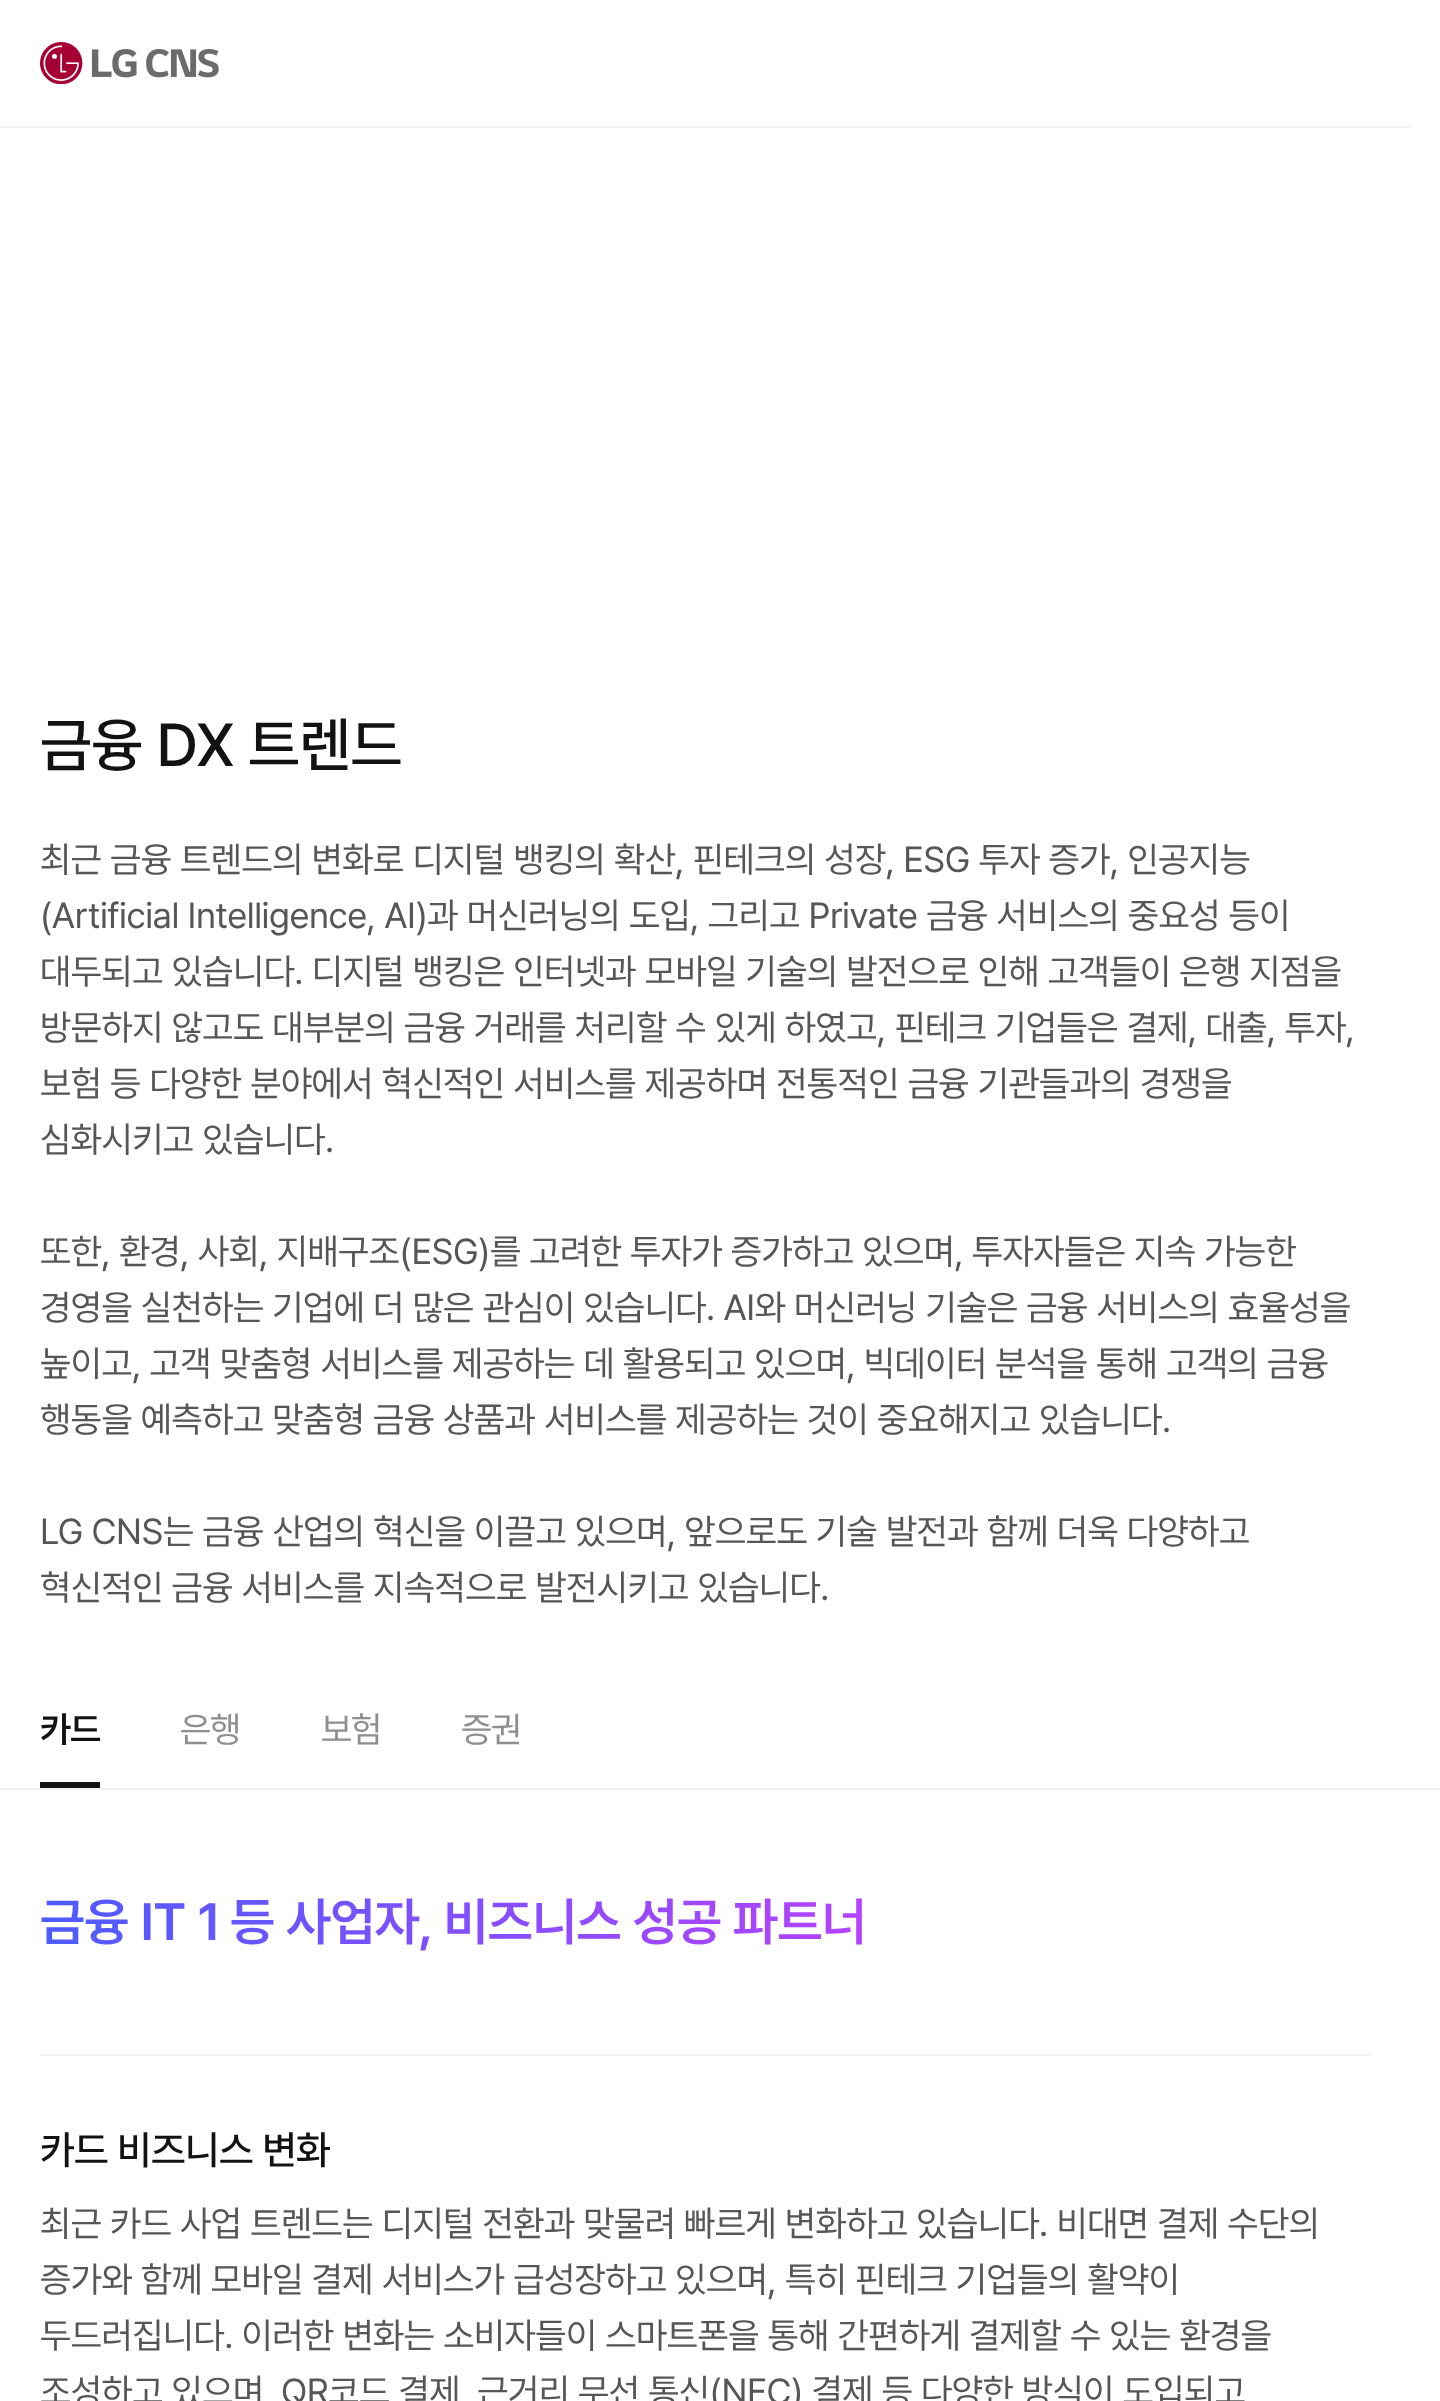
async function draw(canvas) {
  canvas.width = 1440;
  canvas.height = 2401;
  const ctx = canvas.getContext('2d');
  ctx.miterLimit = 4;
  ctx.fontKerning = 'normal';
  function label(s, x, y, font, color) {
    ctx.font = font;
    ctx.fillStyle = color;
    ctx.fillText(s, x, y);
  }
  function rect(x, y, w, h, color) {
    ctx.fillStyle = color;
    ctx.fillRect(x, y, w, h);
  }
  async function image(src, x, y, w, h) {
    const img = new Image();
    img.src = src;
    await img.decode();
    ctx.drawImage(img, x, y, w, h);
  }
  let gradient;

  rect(0, 0, 1440, 2401, '#fff');
  rect(0, 126, 1410, 2, '#f0f1f3');
  await image('assets/img1.png', 40, 42, 179, 42);
  ctx.letterSpacing = '-0.6px';
  label('금융 DX 트렌드', 40, 766, '500 60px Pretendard', '#121212');
  ctx.letterSpacing = '-0.4px';
  label('최근 금융 트렌드의 변화로 디지털 뱅킹의 확산, 핀테크의 성장, ESG 투자 증가, 인공지능', 40, 872, '36px Pretendard', '#565656');
  label('(Artificial Intelligence, AI)과 머신러닝의 도입, 그리고 Private 금융 서비스의 중요성 등이', 40, 928, '36px Pretendard', '#565656');
  label('대두되고 있습니다. 디지털 뱅킹은 인터넷과 모바일 기술의 발전으로 인해 고객들이 은행 지점을', 40, 984, '36px Pretendard', '#565656');
  label('방문하지 않고도 대부분의 금융 거래를 처리할 수 있게 하였고, 핀테크 기업들은 결제, 대출, 투자,', 40, 1040, '36px Pretendard', '#565656');
  label('보험 등 다양한 분야에서 혁신적인 서비스를 제공하며 전통적인 금융 기관들과의 경쟁을', 40, 1096, '36px Pretendard', '#565656');
  label('심화시키고 있습니다.', 40, 1152, '36px Pretendard', '#565656');
  label('또한, 환경, 사회, 지배구조(ESG)를 고려한 투자가 증가하고 있으며, 투자자들은 지속 가능한', 40, 1264, '36px Pretendard', '#565656');
  label('경영을 실천하는 기업에 더 많은 관심이 있습니다. AI와 머신러닝 기술은 금융 서비스의 효율성을', 40, 1320, '36px Pretendard', '#565656');
  label('높이고, 고객 맞춤형 서비스를 제공하는 데 활용되고 있으며, 빅데이터 분석을 통해 고객의 금융', 40, 1376, '36px Pretendard', '#565656');
  label('행동을 예측하고 맞춤형 금융 상품과 서비스를 제공하는 것이 중요해지고 있습니다.', 40, 1432, '36px Pretendard', '#565656');
  label('LG CNS는 금융 산업의 혁신을 이끌고 있으며, 앞으로도 기술 발전과 함께 더욱 다양하고', 40, 1544, '36px Pretendard', '#565656');
  label('혁신적인 금융 서비스를 지속적으로 발전시키고 있습니다.', 40, 1600, '36px Pretendard', '#565656');
  rect(0, 1788, 1440, 2, '#f0f1f3');
  ctx.letterSpacing = '-1px';
  label('카드', 40, 1742, '600 36px Pretendard', '#121212');
  rect(40, 1782, 60, 6, '#121212');
  label('은행', 180, 1742, '36px Pretendard', '#8e8e8e');
  label('보험', 321, 1742, '36px Pretendard', '#8e8e8e');
  label('증권', 461, 1742, '36px Pretendard', '#8e8e8e');
  ctx.letterSpacing = '-0.6px';
  ctx.font = '600 52px Pretendard';
  gradient = ctx.createLinearGradient(39, 1915, 868, 1929);
  gradient.addColorStop(0, '#4d5cfd');
  gradient.addColorStop(1, '#b542fd');
  ctx.fillStyle = gradient;
  ctx.fillText('금융 IT 1', 40, 1940);
  ctx.fillText('등 사업자, 비즈니스 성공 파트너', 230, 1940);
  rect(40, 2054, 1330, 2, '#f0f1f3');
  label('카드 비즈니스 변화', 40, 2164, '500 40px Pretendard', '#121212');
  ctx.letterSpacing = '-0.4px';
  label('최근 카드 사업 트렌드는 디지털 전환과 맞물려 빠르게 변화하고 있습니다. 비대면 결제 수단의', 40, 2236, '36px Pretendard', '#565656');
  label('증가와 함께 모바일 결제 서비스가 급성장하고 있으며, 특히 핀테크 기업들의 활약이', 40, 2292, '36px Pretendard', '#565656');
  label('두드러집니다. 이러한 변화는 소비자들이 스마트폰을 통해 간편하게 결제할 수 있는 환경을', 40, 2348, '36px Pretendard', '#565656');
  label('조성하고 있으며, QR코드 결제, 근거리 무선 통신(NFC) 결제 등 다양한 방식이 도입되고', 40, 2404, '36px Pretendard', '#565656');
}

draw(document.querySelector('canvas'));
